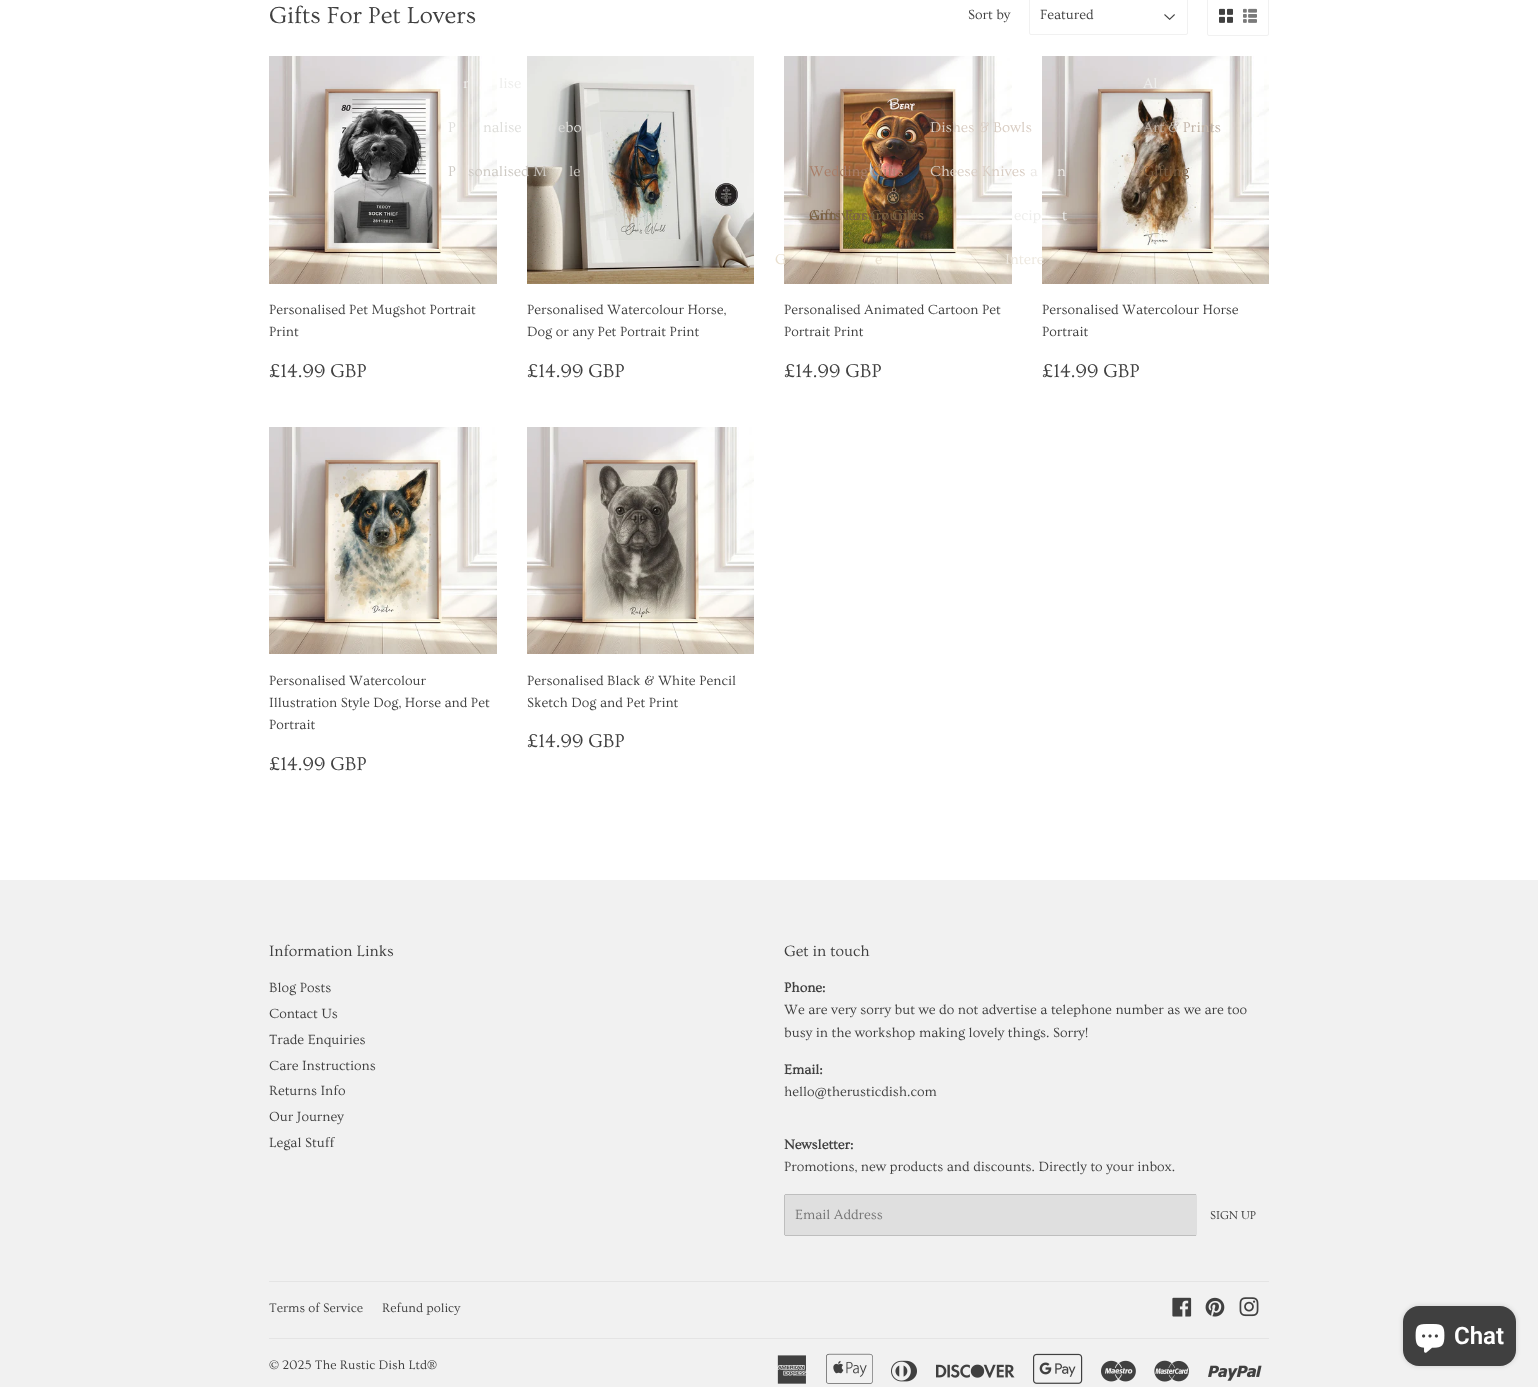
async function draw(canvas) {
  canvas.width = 1538;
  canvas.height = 1387;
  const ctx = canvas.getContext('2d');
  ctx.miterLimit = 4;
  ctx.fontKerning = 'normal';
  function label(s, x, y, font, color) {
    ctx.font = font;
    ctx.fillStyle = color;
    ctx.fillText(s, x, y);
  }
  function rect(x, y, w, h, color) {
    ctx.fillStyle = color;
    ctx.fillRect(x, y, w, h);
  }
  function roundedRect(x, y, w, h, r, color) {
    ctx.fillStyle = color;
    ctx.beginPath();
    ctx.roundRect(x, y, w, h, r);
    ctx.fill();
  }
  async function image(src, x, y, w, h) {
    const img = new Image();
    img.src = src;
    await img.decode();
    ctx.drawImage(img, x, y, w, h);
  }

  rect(0, 0, 1538, 1387, '#fff');
  label('Gifts For Pet Lovers', 269, 23, '24.25px Ovo', '#404040');
  label('Sort by', 968, 19, '14px Ovo', '#404040');
  await image('assets/img1.png', 1164, 14, 11, 6);
  ctx.beginPath();
  ctx.roundRect(1029.5, -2.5, 158, 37, 1.5);
  ctx.strokeStyle = '#f1f1f1';
  ctx.stroke();
  label('Featured', 1040, 19, '14px Ovo', '#404040');
  ctx.beginPath();
  ctx.roundRect(1207.5, -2.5, 61, 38, 1.5);
  ctx.stroke();
  await image('assets/img2.png', 1219, 8, 14, 15);
  await image('assets/img3.png', 1243, 8, 14, 15);
  await image('assets/img4.png', 269, 56, 228, 228);
  label('Personalised Pet Mugshot Portrait', 269, 314, '14px Ovo', '#404040');
  label('Print', 269, 336, '14px Ovo', '#404040');
  label('£14.99 GBP', 269, 377, '19.5px Ovo', '#404040');
  await image('assets/img5.png', 527, 56, 227, 228);
  label('Personalised Watercolour Horse,', 527, 314, '14px Ovo', '#404040');
  label('Dog or any Pet Portrait Print', 527, 336, '14px Ovo', '#404040');
  label('£14.99 GBP', 527, 377, '19.5px Ovo', '#404040');
  await image('assets/img6.png', 784, 56, 228, 228);
  label('Personalised Animated Cartoon Pet', 784, 314, '14px Ovo', '#404040');
  label('Portrait Print', 784, 336, '14px Ovo', '#404040');
  label('£14.99 GBP', 784, 377, '19.5px Ovo', '#404040');
  await image('assets/img7.png', 1042, 56, 227, 228);
  label('Personalised Watercolour Horse', 1042, 314, '14px Ovo', '#404040');
  label('Portrait', 1042, 336, '14px Ovo', '#404040');
  label('£14.99 GBP', 1042, 377, '19.5px Ovo', '#404040');
  await image('assets/img8.png', 269, 427, 228, 227);
  label('Personalised Watercolour', 269, 685, '14px Ovo', '#404040');
  label('Illustration Style Dog, Horse and Pet', 269, 707, '14px Ovo', '#404040');
  label('Portrait', 269, 729, '14px Ovo', '#404040');
  label('£14.99 GBP', 269, 770, '19.5px Ovo', '#404040');
  await image('assets/img9.png', 527, 427, 227, 227);
  label('Personalised Black & White Pencil', 527, 685, '14px Ovo', '#404040');
  label('Sketch Dog and Pet Print', 527, 707, '14px Ovo', '#404040');
  label('£14.99 GBP', 527, 747, '19.5px Ovo', '#404040');
  label('r', 463, 88, '15px Ovo', '#eeeeec');
  label('lise', 499, 88, '15px Ovo', '#eeeeec');
  label('P', 448, 132, '15px Ovo', '#dededb');
  label('nalise', 483, 132, '15px Ovo', '#dededb');
  label('ebo', 558, 132, '15px Ovo', '#dededb');
  label('P', 448, 176, '15px Ovo', '#cecac4');
  label('sonalised M', 468, 176, '15px Ovo', '#cecac4');
  label('le', 569, 176, '15px Ovo', '#cecac4');
  label('Al', 1143, 88, '15px Ovo', '#eeeeec');
  label('Dishes & Bowls', 930, 132, '15px Ovo', '#d9cdc3');
  label('Cheese Knives', 930, 176, '15px Ovo', '#d9cdc3');
  label('Art & Prints', 1143, 132, '15px Ovo', '#c0b3a7');
  label('Wedding Gifts', 809, 176, '15px Ovo', '#a97e69');
  label('Anniversary Gifts', 809, 220, '15px Ovo', '#7a6643');
  label('e', 875, 264, '15px Ovo', '#e9dfce');
  label('a', 1030, 176, '15px Ovo', '#ece9e6');
  label('n', 1057, 176, '15px Ovo', '#ece9e6');
  label('Gifts For Couples', 809, 220, '15px Ovo', '#7b5f45');
  label('ecip', 1014, 220, '15px Ovo', '#eeeeec');
  label('t', 1062, 220, '15px Ovo', '#eeeeec');
  label('G', 775, 264, '15px Ovo', '#e9dfce');
  label('Intere', 1005, 264, '15px Ovo', '#ede8df');
  label('Gifting', 1143, 176, '15px Ovo', '#7b5f45');
  rect(0, 880, 1538, 507, '#f1f1f1');
  label('Information Links', 269, 956, '15.75px Ovo', '#404040');
  label('Blog Posts', 269, 992, '14px Ovo', '#404040');
  label('Contact Us', 269, 1018, '14px Ovo', '#404040');
  label('Trade Enquiries', 269, 1044, '14px Ovo', '#404040');
  label('Care Instructions', 269, 1070, '14px Ovo', '#404040');
  label('Returns Info', 269, 1095, '14px Ovo', '#404040');
  label('Our Journey', 269, 1121, '14px Ovo', '#404040');
  label('Legal Stuff', 269, 1147, '14px Ovo', '#404040');
  label('Get in touch', 784, 956, '15.75px Ovo', '#404040');
  label('Phone:', 784, 992, 'bold 14px Ovo', '#404040');
  label('We are very sorry but we do not advertise a telephone number as we are too', 784, 1014, '14px Ovo', '#404040');
  label('busy in the workshop making lovely things. Sorry!', 784, 1037, '14px Ovo', '#404040');
  label('Email:', 784, 1074, 'bold 14px Ovo', '#404040');
  label('hello@therusticdish.com', 784, 1096, '14px Ovo', '#404040');
  label('Newsletter:', 784, 1149, 'bold 14px Ovo', '#404040');
  label('Promotions, new products and discounts. Directly to your inbox.', 784, 1171, '14px Ovo', '#404040');
  roundedRect(784, 1194, 413, 42, 2, '#dfdfdf');
  rect(785, 1194, 411, 1, '#bebebe');
  rect(785, 1235, 411, 1, '#bebebe');
  rect(784, 1195, 1, 40, '#bebebe');
  label('Email Address', 795, 1219, '14px Ovo', '#757575');
  label('SIGN UP', 1210, 1219, '12px Ovo', '#404040');
  rect(269, 1281, 1000, 1, '#e4e4e4');
  label('Terms of Service', 269, 1312, '13px Ovo', '#404040');
  label('Refund policy', 382, 1312, '13px Ovo', '#404040');
  await image('assets/img10.png', 1172, 1297, 20, 20);
  await image('assets/img11.png', 1205, 1297, 20, 20);
  await image('assets/img12.png', 1239, 1297, 20, 20);
  rect(269, 1338, 1000, 1, '#e4e4e4');
  label('© 2025 The Rustic Dish Ltd®', 269, 1369, '13px Ovo', '#404040');
  await image('assets/img13.png', 777, 1355, 30, 29);
  await image('assets/img14.png', 826, 1353, 47, 31);
  await image('assets/img15.png', 891, 1360, 26, 22);
  await image('assets/img16.png', 936, 1364, 79, 14);
  await image('assets/img17.png', 1033, 1353, 50, 31);
  await image('assets/img18.png', 1101, 1360, 35, 22);
  await image('assets/img19.png', 1154, 1360, 35, 22);
  await image('assets/img20.png', 1208, 1365, 54, 16);
  ctx.fillStyle = '#00000026';
  ctx.filter = 'blur(2.5px)';
  ctx.beginPath();
  ctx.roundRect(1403, 1306, 113, 60, 16);
  ctx.fill();
  ctx.filter = 'none';
  roundedRect(1403, 1306, 113, 60, 16, '#404040');
  await image('assets/img21.png', 1415, 1324, 30, 29);
  label('Chat', 1454, 1344, '600 24px Roboto', '#fff');
}

draw(document.querySelector('canvas'));
